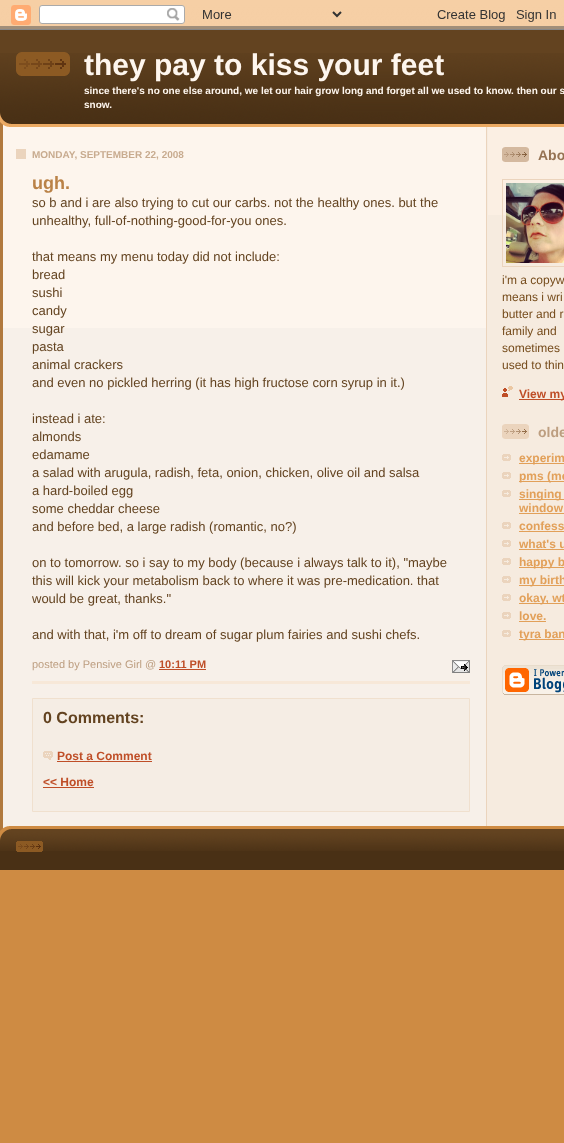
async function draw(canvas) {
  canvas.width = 564;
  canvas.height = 1143;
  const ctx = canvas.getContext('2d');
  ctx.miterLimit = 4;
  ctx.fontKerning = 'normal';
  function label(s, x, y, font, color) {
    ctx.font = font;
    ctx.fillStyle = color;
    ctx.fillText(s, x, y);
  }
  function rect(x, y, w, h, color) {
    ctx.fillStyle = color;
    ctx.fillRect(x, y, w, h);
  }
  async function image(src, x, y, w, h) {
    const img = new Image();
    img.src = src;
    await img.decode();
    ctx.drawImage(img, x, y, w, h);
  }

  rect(0, 0, 564, 1143, '#ce8b43');
  await image('assets/img1.png', 0, 0, 564, 127);
  rect(0, 26, 564, 27, '#634320');
  await image('assets/img2.png', 0, 0, 564, 30);
  await image('assets/img3.png', 0, 112, 564, 15);
  await image('assets/img4.png', 0, 53, 564, 59);
  await image('assets/img5.png', 16, 52, 54, 24);
  label('they pay to kiss your feet', 84, 75, 'bold 30px Liberation Sans', '#fef6ee');
  label('since there\'s no one else around, we let our hair grow long and forget all we used to know. then our s', 84, 94, 'bold 10px Liberation Sans', '#fef6ee');
  label('snow.', 84, 108, 'bold 10px Liberation Sans', '#fef6ee');
  await image('assets/img6.png', 0, 127, 564, 699);
  rect(3, 127, 483, 201, '#fdf5ed');
  rect(16, 149, 10, 10, '#ebd4bd');
  label('MONDAY, SEPTEMBER 22, 2008', 32, 158, 'bold 10px Liberation Sans', '#c8ab8f');
  rect(32, 681, 438, 3, '#f7e8d8');
  label('ugh.', 32, 189, 'bold 18px Liberation Sans', '#ba8247');
  label('so b and i are also trying to cut our carbs. not the healthy ones. but the', 32, 207, '13px Liberation Sans', '#634320');
  label('unhealthy, full-of-nothing-good-for-you ones.', 32, 225, '13px Liberation Sans', '#634320');
  label('that means my menu today did not include:', 32, 261, '13px Liberation Sans', '#634320');
  label('bread', 32, 279, '13px Liberation Sans', '#634320');
  label('sushi', 32, 297, '13px Liberation Sans', '#634320');
  label('candy', 32, 315, '13px Liberation Sans', '#634320');
  label('sugar', 32, 333, '13px Liberation Sans', '#634320');
  label('pasta', 32, 351, '13px Liberation Sans', '#634320');
  label('animal crackers', 32, 369, '13px Liberation Sans', '#634320');
  label('and even no pickled herring (it has high fructose corn syrup in it.)', 32, 387, '13px Liberation Sans', '#634320');
  label('instead i ate:', 32, 423, '13px Liberation Sans', '#634320');
  label('almonds', 32, 441, '13px Liberation Sans', '#634320');
  label('edamame', 32, 459, '13px Liberation Sans', '#634320');
  label('a salad with arugula, radish, feta, onion, chicken, olive oil and salsa', 32, 477, '13px Liberation Sans', '#634320');
  label('a hard-boiled egg', 32, 495, '13px Liberation Sans', '#634320');
  label('some cheddar cheese', 32, 513, '13px Liberation Sans', '#634320');
  label('and before bed, a large radish (romantic, no?)', 32, 531, '13px Liberation Sans', '#634320');
  label('on to tomorrow. so i say to my body (because i always talk to it), "maybe', 32, 567, '13px Liberation Sans', '#634320');
  label('this will kick your metabolism back to where it was pre-medication. that', 32, 585, '13px Liberation Sans', '#634320');
  label('would be great, thanks."', 32, 603, '13px Liberation Sans', '#634320');
  label('and with that, i\'m off to dream of sugar plum fairies and sushi chefs.', 32, 639, '13px Liberation Sans', '#634320');
  label('posted by Pensive Girl @', 32, 668, '11px Liberation Sans', '#bd9e80');
  label('10:11 PM', 159, 668, 'bold 11px Liberation Sans', '#bf4e27');
  rect(159, 669, 47, 1, '#bf4e27');
  await image('assets/img7.png', 452, 660, 18, 13);
  ctx.fillStyle = '#f5ede4';
  ctx.beginPath();
  ctx.rect(32.5, 698.5, 437, 113);
  ctx.fill();
  ctx.strokeStyle = '#f0e0ce';
  ctx.stroke();
  label('0 Comments:', 43, 723, 'bold 16px Liberation Sans', '#634320');
  await image('assets/img8.png', 43, 751, 10, 9);
  label('Post a Comment', 57, 760, 'bold 12px Liberation Sans', '#bf4e27');
  rect(57, 761, 95, 1, '#bf4e27');
  label('<< Home', 43, 786, 'bold 12px Liberation Sans', '#bf4e27');
  rect(43, 787, 51, 1, '#bf4e27');
  rect(488, 127, 76, 88, '#fbefe3');
  await image('assets/img9.png', 502, 147, 27, 15);
  label('Abo', 538, 160, 'bold 14px Liberation Sans', '#957252');
  ctx.strokeStyle = '#ebd4bd';
  ctx.strokeRect(502.5, 179.5, 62, 87);
  await image('assets/img10.png', 506, 183, 58, 80);
  label('i\'m a copyw', 502, 284, '12px Liberation Sans', '#764c1c');
  label('means i wri', 502, 301, '12px Liberation Sans', '#764c1c');
  label('butter and r', 502, 318, '12px Liberation Sans', '#764c1c');
  label('family and', 502, 335, '12px Liberation Sans', '#764c1c');
  label('sometimes', 502, 352, '12px Liberation Sans', '#764c1c');
  label('used to thin', 502, 369, '12px Liberation Sans', '#764c1c');
  await image('assets/img11.png', 502, 386, 11, 11);
  rect(519, 399, 45, 1, '#bf4e27');
  label('View my', 519, 398, 'bold 12px Liberation Sans', '#bf4e27');
  await image('assets/img12.png', 502, 424, 27, 15);
  label('olde', 538, 437, 'bold 14px Liberation Sans', '#bd9e80');
  await image('assets/img13.png', 502, 454, 9, 7);
  rect(519, 463, 45, 1, '#e2a059');
  label('experim', 519, 462, 'bold 12px Liberation Sans', '#e2a059');
  await image('assets/img13.png', 502, 472, 9, 7);
  rect(519, 481, 45, 1, '#e2a059');
  label('pms (me', 519, 480, 'bold 12px Liberation Sans', '#e2a059');
  await image('assets/img13.png', 502, 490, 9, 7);
  rect(519, 499, 45, 1, '#e2a059');
  label('singing', 519, 498, 'bold 12px Liberation Sans', '#e2a059');
  label('window', 519, 512, 'bold 12px Liberation Sans', '#e2a059');
  rect(519, 513, 45, 1, '#e2a059');
  await image('assets/img13.png', 502, 522, 9, 7);
  label('confess', 519, 530, 'bold 12px Liberation Sans', '#e2a059');
  rect(519, 531, 45, 1, '#e2a059');
  await image('assets/img13.png', 502, 540, 9, 7);
  label('what\'s u', 519, 548, 'bold 12px Liberation Sans', '#e2a059');
  rect(519, 549, 45, 1, '#e2a059');
  await image('assets/img13.png', 502, 558, 9, 7);
  rect(519, 567, 45, 1, '#e2a059');
  label('happy b', 519, 566, 'bold 12px Liberation Sans', '#e2a059');
  await image('assets/img13.png', 502, 576, 9, 7);
  rect(519, 585, 45, 1, '#e2a059');
  label('my birth', 519, 584, 'bold 12px Liberation Sans', '#e2a059');
  await image('assets/img13.png', 502, 594, 9, 7);
  rect(519, 603, 45, 1, '#e2a059');
  label('okay, wt', 519, 602, 'bold 12px Liberation Sans', '#e2a059');
  await image('assets/img13.png', 502, 612, 9, 7);
  label('love.', 519, 620, 'bold 12px Liberation Sans', '#e2a059');
  rect(519, 621, 27, 1, '#e2a059');
  await image('assets/img13.png', 502, 630, 9, 7);
  rect(519, 639, 45, 1, '#e2a059');
  label('tyra ban', 519, 638, 'bold 12px Liberation Sans', '#e2a059');
  await image('assets/img14.png', 502, 665, 62, 30);
  await image('assets/img15.png', 0, 826, 564, 15);
  rect(0, 851, 564, 19, '#493015');
  await image('assets/img16.png', 0, 841, 564, 10);
  await image('assets/img17.png', 16, 841, 27, 11);
}

draw(document.querySelector('canvas'));
